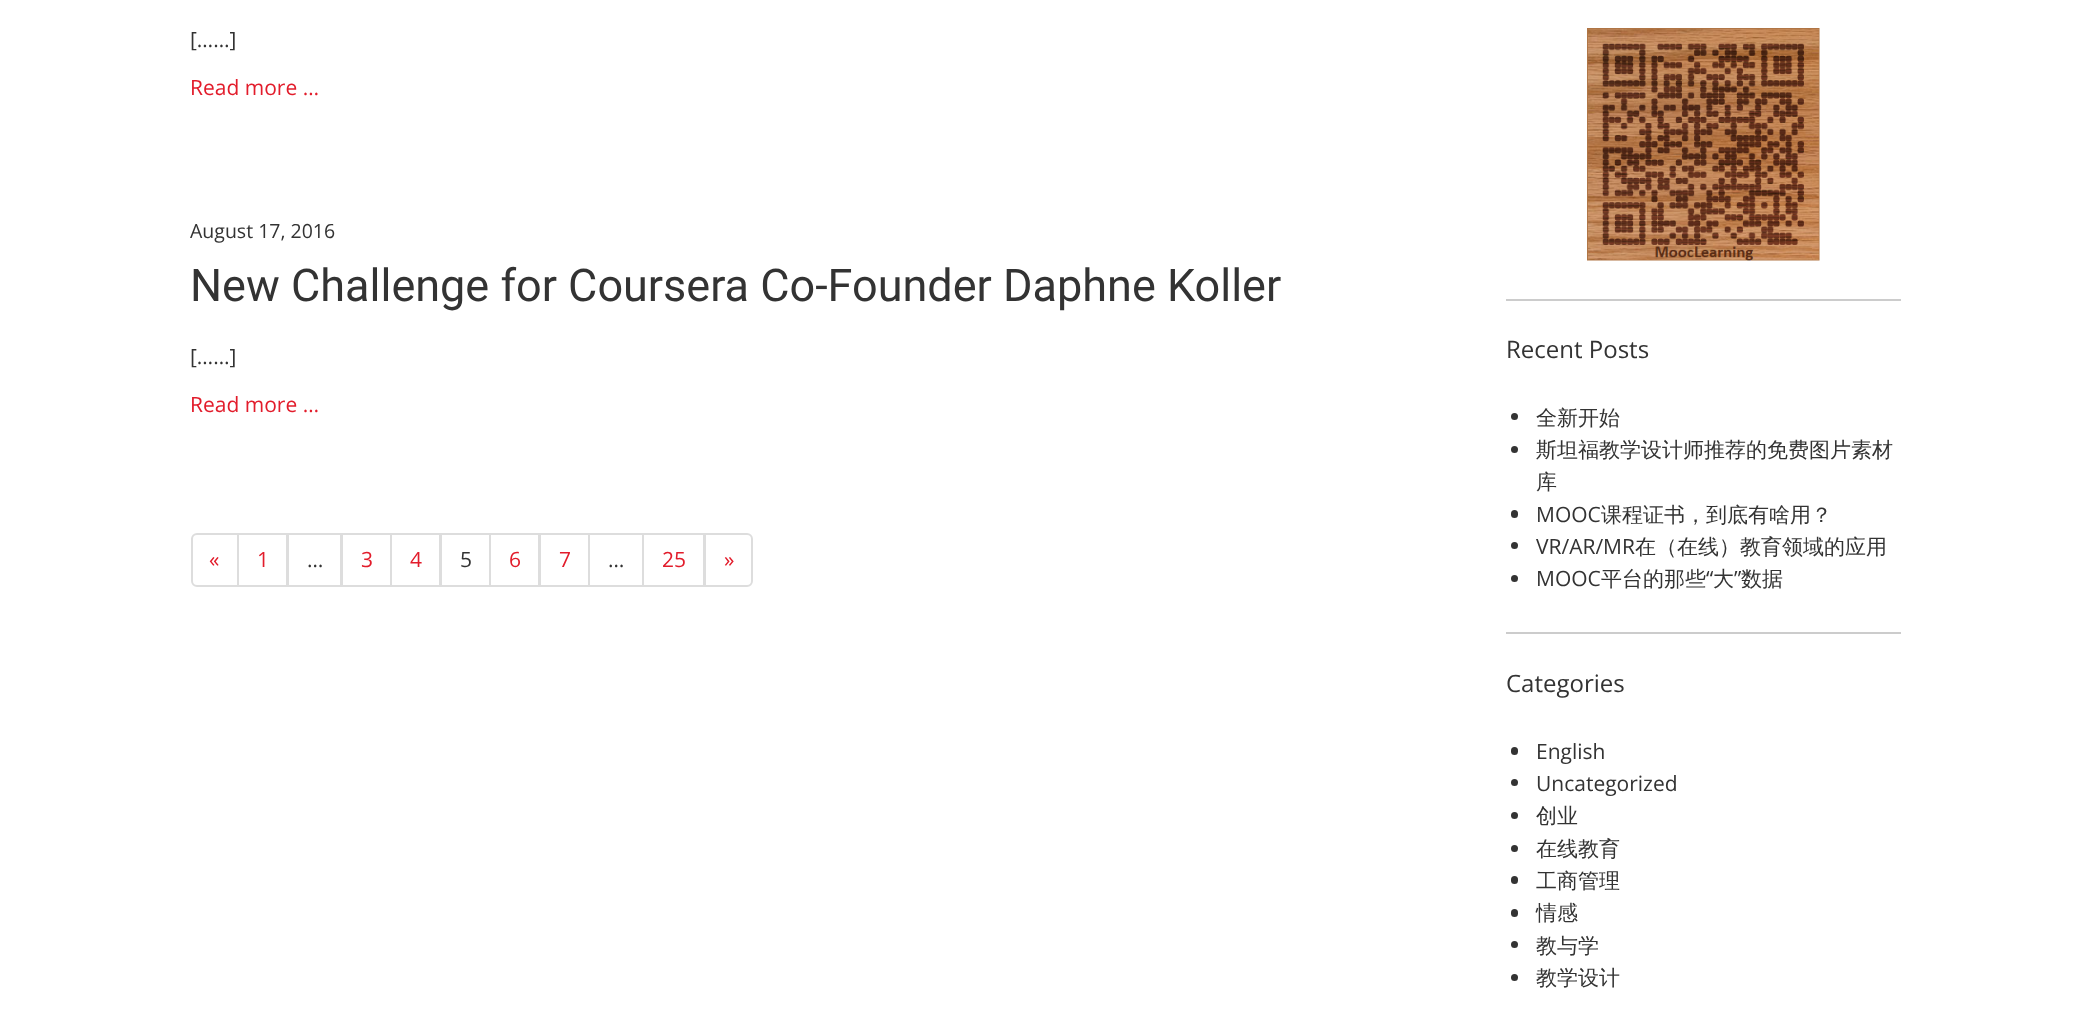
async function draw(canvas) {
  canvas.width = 2089;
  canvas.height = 1023;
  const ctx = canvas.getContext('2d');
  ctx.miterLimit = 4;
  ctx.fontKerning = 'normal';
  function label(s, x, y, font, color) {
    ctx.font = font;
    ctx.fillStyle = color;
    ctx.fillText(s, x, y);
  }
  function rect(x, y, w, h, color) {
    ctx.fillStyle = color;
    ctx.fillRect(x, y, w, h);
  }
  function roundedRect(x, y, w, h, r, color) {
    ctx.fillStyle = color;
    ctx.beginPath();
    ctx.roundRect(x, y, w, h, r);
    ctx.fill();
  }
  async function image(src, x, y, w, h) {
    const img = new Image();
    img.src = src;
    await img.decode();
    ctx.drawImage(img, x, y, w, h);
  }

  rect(0, 0, 2089, 1023, '#fff');
  label('[……]', 190, 47, '21px Open Sans', '#333');
  label('Read more …', 190, 95, '21px Open Sans', '#e21c2b');
  label('August 17, 2016', 190, 238, '19.5px Open Sans', '#333');
  label('New Challenge for Coursera Co-Founder Daphne Koller', 190, 301, '45px Roboto', '#333');
  label('[……]', 190, 364, '21px Open Sans', '#333');
  label('Read more …', 190, 412, '21px Open Sans', '#e21c2b');
  ctx.beginPath();
  ctx.roundRect(192, 534, 46, 52, [5, 0, 0, 5]);
  ctx.strokeStyle = '#ddd';
  ctx.lineWidth = 2;
  ctx.stroke();
  label('«', 209, 567, '21px Open Sans', '#e21c2b');
  ctx.strokeRect(238, 534, 49, 52);
  label('1', 257, 567, '21px Open Sans', '#e21c2b');
  ctx.strokeRect(288, 534, 53, 52);
  label('…', 307, 567, '21px Open Sans', '#333');
  ctx.strokeRect(342, 534, 49, 52);
  label('3', 361, 567, '21px Open Sans', '#e21c2b');
  ctx.strokeRect(391, 534, 49, 52);
  label('4', 410, 567, '21px Open Sans', '#e21c2b');
  ctx.strokeRect(441, 534, 49, 52);
  label('5', 460, 567, '21px Open Sans', '#333');
  ctx.strokeRect(490, 534, 49, 52);
  label('6', 509, 567, '21px Open Sans', '#e21c2b');
  ctx.strokeRect(540, 534, 49, 52);
  label('7', 559, 567, '21px Open Sans', '#e21c2b');
  ctx.strokeRect(589, 534, 54, 52);
  label('…', 608, 567, '21px Open Sans', '#333');
  ctx.strokeRect(643, 534, 61, 52);
  label('25', 662, 567, '21px Open Sans', '#e21c2b');
  ctx.fillStyle = '#fff';
  ctx.beginPath();
  ctx.roundRect(705, 534, 47, 52, [0, 5, 5, 0]);
  ctx.fill();
  ctx.stroke();
  label('»', 724, 567, '21px Open Sans', '#e21c2b');
  rect(1506, 299, 395, 2, '#ccc');
  await image('assets/img1.png', 1587, 28, 233, 233);
  rect(1506, 632, 395, 2, '#ccc');
  label('Recent Posts', 1506, 358, '24px Open Sans', '#333');
  ctx.beginPath();
  ctx.arc(1514.5, 416.5, 3.5, 0, 2 * Math.PI);
  ctx.fill();
  label('全新开始', 1536, 425, '500 21px WenQuanYi Zen Hei', '#333');
  ctx.beginPath();
  ctx.arc(1514.5, 449.5, 3.5, 0, 2 * Math.PI);
  ctx.fill();
  label('斯坦福教学设计师推荐的免费图片素材', 1536, 457, '500 21px WenQuanYi Zen Hei', '#333');
  label('库', 1536, 489, '500 21px WenQuanYi Zen Hei', '#333');
  roundedRect(1511, 510, 7, 8, 3.5, '#333');
  label('MOOC', 1536, 522, '21px Open Sans', '#333');
  label('课程证书，到底有啥用？', 1601, 522, '500 21px WenQuanYi Zen Hei', '#333');
  ctx.beginPath();
  ctx.arc(1514.5, 545.5, 3.5, 0, 2 * Math.PI);
  ctx.fill();
  label('VR/AR/MR', 1536, 554, '21px Open Sans', '#333');
  label('在（在线）教育领域的应用', 1635, 554, '500 21px WenQuanYi Zen Hei', '#333');
  label('MOOC', 1536, 586, '21px Open Sans', '#333');
  label('平台的那些', 1601, 586, '500 21px WenQuanYi Zen Hei', '#333');
  label('“', 1706, 586, '21px Open Sans', '#333');
  label('大', 1713, 586, '500 21px WenQuanYi Zen Hei', '#333');
  label('”', 1734, 586, '21px Open Sans', '#333');
  label('数据', 1741, 586, '500 21px WenQuanYi Zen Hei', '#333');
  ctx.beginPath();
  ctx.arc(1514.5, 578.5, 3.5, 0, 2 * Math.PI);
  ctx.fill();
  label('Categories', 1506, 692, '24px Open Sans', '#333');
  roundedRect(1511, 747, 7, 8, 3.5, '#333');
  label('English', 1536, 759, '21px Open Sans', '#333');
  ctx.beginPath();
  ctx.arc(1514.5, 782.5, 3.5, 0, 2 * Math.PI);
  ctx.fill();
  label('Uncategorized', 1536, 791, '21px Open Sans', '#333');
  ctx.beginPath();
  ctx.arc(1514.5, 815.5, 3.5, 0, 2 * Math.PI);
  ctx.fill();
  label('创业', 1536, 823, '500 21px WenQuanYi Zen Hei', '#333');
  ctx.beginPath();
  ctx.arc(1514.5, 848.5, 3.5, 0, 2 * Math.PI);
  ctx.fill();
  label('在线教育', 1536, 856, '500 21px WenQuanYi Zen Hei', '#333');
  roundedRect(1511, 876, 7, 8, 3.5, '#333');
  label('工商管理', 1536, 888, '500 21px WenQuanYi Zen Hei', '#333');
  roundedRect(1511, 909, 7, 8, 3.5, '#333');
  label('情感', 1536, 920, '500 21px WenQuanYi Zen Hei', '#333');
  ctx.beginPath();
  ctx.arc(1514.5, 944.5, 3.5, 0, 2 * Math.PI);
  ctx.fill();
  label('教与学', 1536, 953, '500 21px WenQuanYi Zen Hei', '#333');
  ctx.beginPath();
  ctx.arc(1514.5, 977.5, 3.5, 0, 2 * Math.PI);
  ctx.fill();
  label('教学设计', 1536, 985, '500 21px WenQuanYi Zen Hei', '#333');
}

draw(document.querySelector('canvas'));
